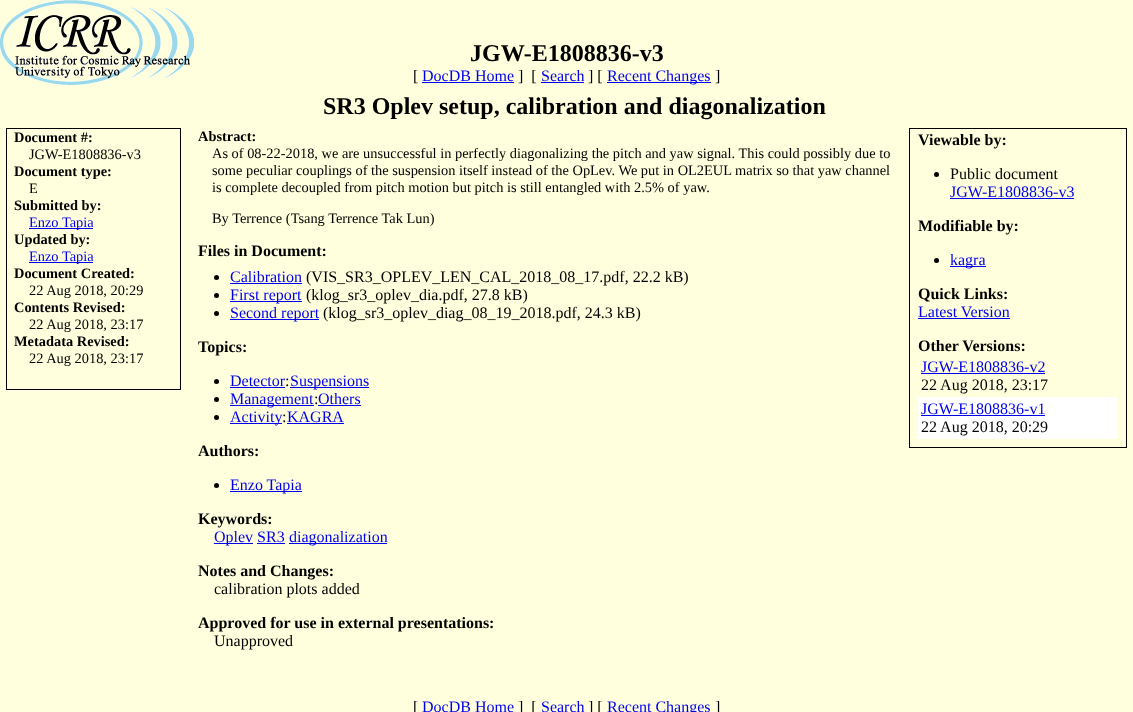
async function draw(canvas) {
  canvas.width = 1133;
  canvas.height = 712;
  const ctx = canvas.getContext('2d');
  ctx.miterLimit = 4;
  ctx.fontKerning = 'normal';
  function label(s, x, y, font, color) {
    ctx.font = font;
    ctx.fillStyle = color;
    ctx.fillText(s, x, y);
  }
  function rect(x, y, w, h, color) {
    ctx.fillStyle = color;
    ctx.fillRect(x, y, w, h);
  }
  async function image(src, x, y, w, h) {
    const img = new Image();
    img.src = src;
    await img.decode();
    ctx.drawImage(img, x, y, w, h);
  }

  rect(0, 0, 1133, 712, '#ffd');
  await image('assets/img1.png', 0, 0, 194, 85);
  label('JGW-E1808836-v3', 470, 61, 'bold 24px Liberation Serif', '#000');
  label('[', 413, 81, '16px Liberation Serif', '#000');
  label('DocDB Home', 422, 81, '16px Liberation Serif', '#00e');
  rect(422, 82, 92, 1, '#00e');
  label(']  [', 518, 81, '16px Liberation Serif', '#000');
  label('Search', 541, 81, '16px Liberation Serif', '#00e');
  rect(541, 82, 43, 1, '#00e');
  label('] [', 588, 81, '16px Liberation Serif', '#000');
  rect(607, 82, 104, 1, '#00e');
  label('Recent Changes', 607, 81, '16px Liberation Serif', '#00e');
  label(']', 715, 81, '16px Liberation Serif', '#000');
  label('SR3 Oplev setup, calibration and diagonalization', 323, 114, 'bold 24px Liberation Serif', '#000');
  ctx.strokeStyle = '#000';
  ctx.strokeRect(6.5, 128.5, 174, 261);
  label('Document #:', 14, 142, 'bold 14.4px Liberation Serif', '#000');
  label('JGW-E1808836-v3', 29, 159, '14.4px Liberation Serif', '#000');
  label('Document type:', 14, 176, 'bold 14.4px Liberation Serif', '#000');
  label('E', 29, 193, '14.4px Liberation Serif', '#000');
  label('Submitted by:', 14, 210, 'bold 14.4px Liberation Serif', '#000');
  rect(29, 228, 64, 1, '#00e');
  label('Enzo Tapia', 29, 227, '14.4px Liberation Serif', '#00e');
  label('Updated by:', 14, 244, 'bold 14.4px Liberation Serif', '#000');
  rect(29, 262, 64, 1, '#00e');
  label('Enzo Tapia', 29, 261, '14.4px Liberation Serif', '#00e');
  label('Document Created:', 14, 278, 'bold 14.4px Liberation Serif', '#000');
  label('22 Aug 2018, 20:29', 29, 295, '14.4px Liberation Serif', '#000');
  label('Contents Revised:', 14, 312, 'bold 14.4px Liberation Serif', '#000');
  label('22 Aug 2018, 23:17', 29, 329, '14.4px Liberation Serif', '#000');
  label('Metadata Revised:', 14, 346, 'bold 14.4px Liberation Serif', '#000');
  label('22 Aug 2018, 23:17', 29, 363, '14.4px Liberation Serif', '#000');
  label('Abstract:', 198, 141, 'bold 14.4px Liberation Serif', '#000');
  label('As of 08-22-2018, we are unsuccessful in perfectly diagonalizing the pitch and yaw signal. This could possibly due to', 212, 158, '14.4px Liberation Serif', '#000');
  label('some peculiar couplings of the suspension itself instead of the OpLev. We put in OL2EUL matrix so that yaw channel', 212, 175, '14.4px Liberation Serif', '#000');
  label('is complete decoupled from pitch motion but pitch is still entangled with 2.5% of yaw.', 212, 192, '14.4px Liberation Serif', '#000');
  label('By Terrence (Tsang Terrence Tak Lun)', 212, 223, '14.4px Liberation Serif', '#000');
  ctx.strokeRect(909.5, 128.5, 217, 319);
  label('Viewable by:', 918, 145, 'bold 16px Liberation Serif', '#000');
  ctx.beginPath();
  ctx.arc(936.5, 174.5, 2.5, 0, 2 * Math.PI);
  ctx.fill();
  label('Public document', 950, 179, '16px Liberation Serif', '#000');
  label('JGW-E1808836-v3', 950, 197, '16px Liberation Serif', '#00e');
  rect(950, 198, 124, 1, '#00e');
  label('Modifiable by:', 918, 231, 'bold 16px Liberation Serif', '#000');
  ctx.beginPath();
  ctx.arc(936.5, 260.5, 2.5, 0, 2 * Math.PI);
  ctx.fill();
  rect(950, 266, 36, 1, '#00e');
  label('kagra', 950, 265, '16px Liberation Serif', '#00e');
  label('Quick Links:', 918, 299, 'bold 16px Liberation Serif', '#000');
  label('Latest Version', 918, 317, '16px Liberation Serif', '#00e');
  rect(918, 318, 92, 1, '#00e');
  label('Other Versions:', 918, 351, 'bold 16px Liberation Serif', '#000');
  label('JGW-E1808836-v2', 921, 372, '16px Liberation Serif', '#00e');
  rect(921, 373, 124, 1, '#00e');
  label('22 Aug 2018, 23:17', 921, 390, '16px Liberation Serif', '#000');
  rect(918, 397, 200, 42, '#fff');
  label('JGW-E1808836-v1', 921, 414, '16px Liberation Serif', '#00e');
  rect(921, 415, 124, 1, '#00e');
  label('22 Aug 2018, 20:29', 921, 432, '16px Liberation Serif', '#000');
  label('Files in Document:', 198, 256, 'bold 16px Liberation Serif', '#000');
  ctx.beginPath();
  ctx.arc(216.5, 277.5, 2.5, 0, 2 * Math.PI);
  ctx.fill();
  label('Calibration', 230, 282, '16px Liberation Serif', '#00e');
  rect(230, 283, 72, 1, '#00e');
  label('(VIS_SR3_OPLEV_LEN_CAL_2018_08_17.pdf, 22.2 kB)', 306, 282, '16px Liberation Serif', '#000');
  ctx.beginPath();
  ctx.arc(216.5, 295.5, 2.5, 0, 2 * Math.PI);
  ctx.fill();
  rect(230, 301, 72, 1, '#00e');
  label('First report', 230, 300, '16px Liberation Serif', '#00e');
  label('(klog_sr3_oplev_dia.pdf, 27.8 kB)', 306, 300, '16px Liberation Serif', '#000');
  ctx.beginPath();
  ctx.arc(216.5, 313.5, 2.5, 0, 2 * Math.PI);
  ctx.fill();
  rect(230, 319, 89, 1, '#00e');
  label('Second report', 230, 318, '16px Liberation Serif', '#00e');
  label('(klog_sr3_oplev_diag_08_19_2018.pdf, 24.3 kB)', 323, 318, '16px Liberation Serif', '#000');
  label('Topics:', 198, 352, 'bold 16px Liberation Serif', '#000');
  ctx.beginPath();
  ctx.arc(216.5, 381.5, 2.5, 0, 2 * Math.PI);
  ctx.fill();
  label('Detector', 230, 386, '16px Liberation Serif', '#00e');
  rect(230, 387, 55, 1, '#00e');
  label(':', 285, 386, '16px Liberation Serif', '#000');
  rect(290, 387, 79, 1, '#00e');
  label('Suspensions', 290, 386, '16px Liberation Serif', '#00e');
  ctx.fillStyle = '#000';
  ctx.beginPath();
  ctx.arc(216.5, 399.5, 2.5, 0, 2 * Math.PI);
  ctx.fill();
  rect(230, 405, 84, 1, '#00e');
  label('Management', 230, 404, '16px Liberation Serif', '#00e');
  label(':', 314, 404, '16px Liberation Serif', '#000');
  label('Others', 318, 404, '16px Liberation Serif', '#00e');
  rect(318, 405, 43, 1, '#00e');
  ctx.fillStyle = '#000';
  ctx.beginPath();
  ctx.arc(216.5, 417.5, 2.5, 0, 2 * Math.PI);
  ctx.fill();
  rect(230, 423, 52, 1, '#00e');
  label('Activity', 230, 422, '16px Liberation Serif', '#00e');
  label(':', 282, 422, '16px Liberation Serif', '#000');
  label('KAGRA', 287, 422, '16px Liberation Serif', '#00e');
  rect(287, 423, 57, 1, '#00e');
  label('Authors:', 198, 456, 'bold 16px Liberation Serif', '#000');
  ctx.beginPath();
  ctx.arc(216.5, 485.5, 2.5, 0, 2 * Math.PI);
  ctx.fill();
  rect(230, 491, 72, 1, '#00e');
  label('Enzo Tapia', 230, 490, '16px Liberation Serif', '#00e');
  label('Keywords:', 198, 524, 'bold 16px Liberation Serif', '#000');
  rect(214, 543, 39, 1, '#00e');
  label('Oplev SR3', 214, 542, '16px Liberation Serif', '#00e');
  rect(289, 543, 98, 1, '#00e');
  label('diagonalization', 289, 542, '16px Liberation Serif', '#00e');
  rect(257, 543, 28, 1, '#00e');
  label('Notes and Changes:', 198, 576, 'bold 16px Liberation Serif', '#000');
  label('calibration plots added', 214, 594, '16px Liberation Serif', '#000');
  label('Approved for use in external presentations:', 198, 628, 'bold 16px Liberation Serif', '#000');
  label('Unapproved', 214, 646, '16px Liberation Serif', '#000');
  label('[', 413, 712, '16px Liberation Serif', '#000');
  label('DocDB Home', 422, 712, '16px Liberation Serif', '#00e');
  label(']  [', 518, 712, '16px Liberation Serif', '#000');
  label('Search', 541, 712, '16px Liberation Serif', '#00e');
  label('] [', 588, 712, '16px Liberation Serif', '#000');
  label('Recent Changes', 607, 712, '16px Liberation Serif', '#00e');
  label(']', 715, 712, '16px Liberation Serif', '#000');
}

draw(document.querySelector('canvas'));
